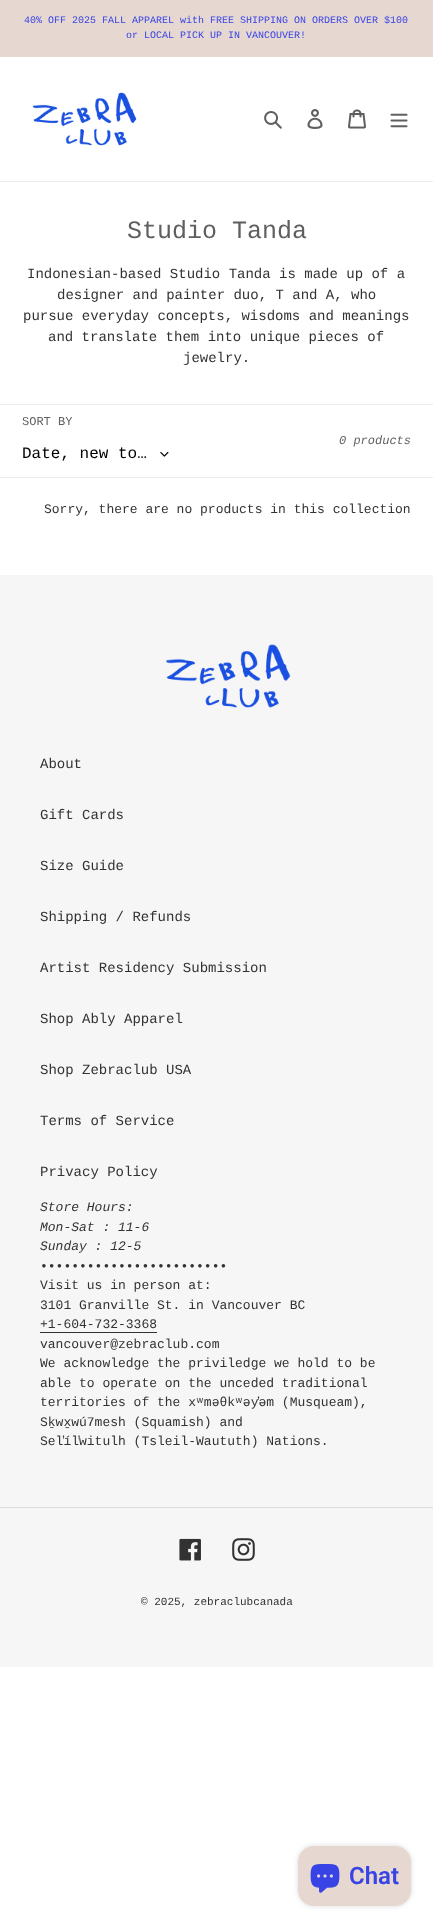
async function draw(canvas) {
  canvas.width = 433;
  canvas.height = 1927;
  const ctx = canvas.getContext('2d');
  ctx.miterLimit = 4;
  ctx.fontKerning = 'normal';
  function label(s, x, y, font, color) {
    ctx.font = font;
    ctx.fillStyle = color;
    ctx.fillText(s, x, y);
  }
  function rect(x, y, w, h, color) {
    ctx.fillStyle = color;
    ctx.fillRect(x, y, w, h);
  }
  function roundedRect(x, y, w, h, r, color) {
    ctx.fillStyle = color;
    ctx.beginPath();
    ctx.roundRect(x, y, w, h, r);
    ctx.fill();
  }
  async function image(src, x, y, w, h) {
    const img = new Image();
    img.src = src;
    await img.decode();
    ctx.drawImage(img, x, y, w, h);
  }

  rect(0, 0, 433, 1927, '#fff');
  rect(0, 0, 433, 57, '#e6d8d0');
  label('40% OFF 2025 FALL APPAREL with FREE SHIPPING ON ORDERS OVER $100', 24, 23, '10px Liberation Mono', '#3843e6');
  label('or LOCAL PICK UP IN VANCOUVER!', 126, 38, '10px Liberation Mono', '#3843e6');
  rect(0, 181, 433, 1, '#ebebeb');
  await image('assets/img1.png', 32, 92, 105, 54);
  await image('assets/img2.png', 264, 111, 18, 18);
  await image('assets/img3.png', 307, 109, 16, 20);
  await image('assets/img4.png', 348, 109, 18, 20);
  await image('assets/img5.png', 390, 113, 18, 15);
  label('Studio Tanda', 127, 238, '25px Liberation Mono', '#605f5f');
  label('Indonesian-based Studio Tanda is made up of a', 27, 278, '14px Liberation Mono', '#333232');
  label('designer and painter duo, T and A, who', 57, 299, '14px Liberation Mono', '#333232');
  label('pursue everyday concepts, wisdoms and meanings', 23, 320, '14px Liberation Mono', '#333232');
  label('and translate them into unique pieces of', 48, 341, '14px Liberation Mono', '#333232');
  label('jewelry.', 183, 362, '14px Liberation Mono', '#333232');
  rect(0, 404, 433, 1, '#ebebeb');
  rect(0, 477, 433, 1, '#ebebeb');
  label('SORT BY', 22, 425, '12px Liberation Mono', '#605f5f');
  label('Date, new to…', 22, 458, '16px Liberation Mono', '#000');
  await image('assets/img6.png', 160, 452, 9, 5);
  label('0 products', 339, 444, 'italic 12px Liberation Mono', '#605f5f');
  label('Sorry, there are no products in this collection', 44, 513, '13px Liberation Mono', '#333232');
  rect(0, 575, 433, 1092, '#f6f6f6');
  await image('assets/img7.png', 166, 644, 125, 64);
  label('About', 40, 768, '14px Liberation Mono', '#333232');
  label('Gift Cards', 40, 819, '14px Liberation Mono', '#333232');
  label('Size Guide', 40, 870, '14px Liberation Mono', '#333232');
  label('Shipping / Refunds', 40, 921, '14px Liberation Mono', '#333232');
  label('Artist Residency Submission', 40, 972, '14px Liberation Mono', '#333232');
  label('Shop Ably Apparel', 40, 1023, '14px Liberation Mono', '#333232');
  label('Shop Zebraclub USA', 40, 1074, '14px Liberation Mono', '#333232');
  label('Terms of Service', 40, 1125, '14px Liberation Mono', '#333232');
  label('Privacy Policy', 40, 1176, '14px Liberation Mono', '#333232');
  label('Store Hours:', 40, 1211, 'italic 13px Liberation Mono', '#333232');
  label('Mon-Sat : 11-6', 40, 1231, 'italic 13px Liberation Mono', '#333232');
  label('Sunday : 12-5', 40, 1250, 'italic 13px Liberation Mono', '#333232');
  label('••••••••••••••••••••••••', 40, 1270, '13px Liberation Mono', '#333232');
  label('Visit us in person at:', 40, 1289, '13px Liberation Mono', '#333232');
  label('3101 Granville St. in Vancouver BC', 40, 1309, '13px Liberation Mono', '#333232');
  label('+1-604-732-3368', 40, 1328, '13px Liberation Mono', '#333232');
  rect(40, 1332, 117, 1, '#333232');
  label('vancouver@zebraclub.com', 40, 1348, '13px Liberation Mono', '#333232');
  label('We acknowledge the priviledge we hold to be', 40, 1367, '13px Liberation Mono', '#333232');
  label('able to operate on the unceded traditional', 40, 1387, '13px Liberation Mono', '#333232');
  label('territories of the xʷməθkʷəy̓əm (Musqueam),', 40, 1406, '13px Liberation Mono', '#333232');
  label('Sḵwx̱wú7mesh (Squamish) and', 40, 1426, '13px Liberation Mono', '#333232');
  label('Sel̓íl̓witulh (Tsleil-Waututh) Nations.', 40, 1445, '13px Liberation Mono', '#333232');
  rect(0, 1507, 433, 1, '#ddd');
  await image('assets/img8.png', 179, 1538, 22, 23);
  await image('assets/img9.png', 232, 1538, 23, 23);
  label('© 2025, zebraclubcanada', 141, 1605, '11px Liberation Mono', '#333232');
  ctx.fillStyle = '#00000026';
  ctx.filter = 'blur(2.5px)';
  ctx.beginPath();
  ctx.roundRect(298, 1846, 113, 60, 16);
  ctx.fill();
  ctx.filter = 'none';
  roundedRect(298, 1846, 113, 60, 16, '#e6d8d0');
  await image('assets/img10.png', 310, 1864, 30, 29);
  label('Chat', 349, 1884, '600 24px Roboto', '#3843e6');
}

draw(document.querySelector('canvas'));
